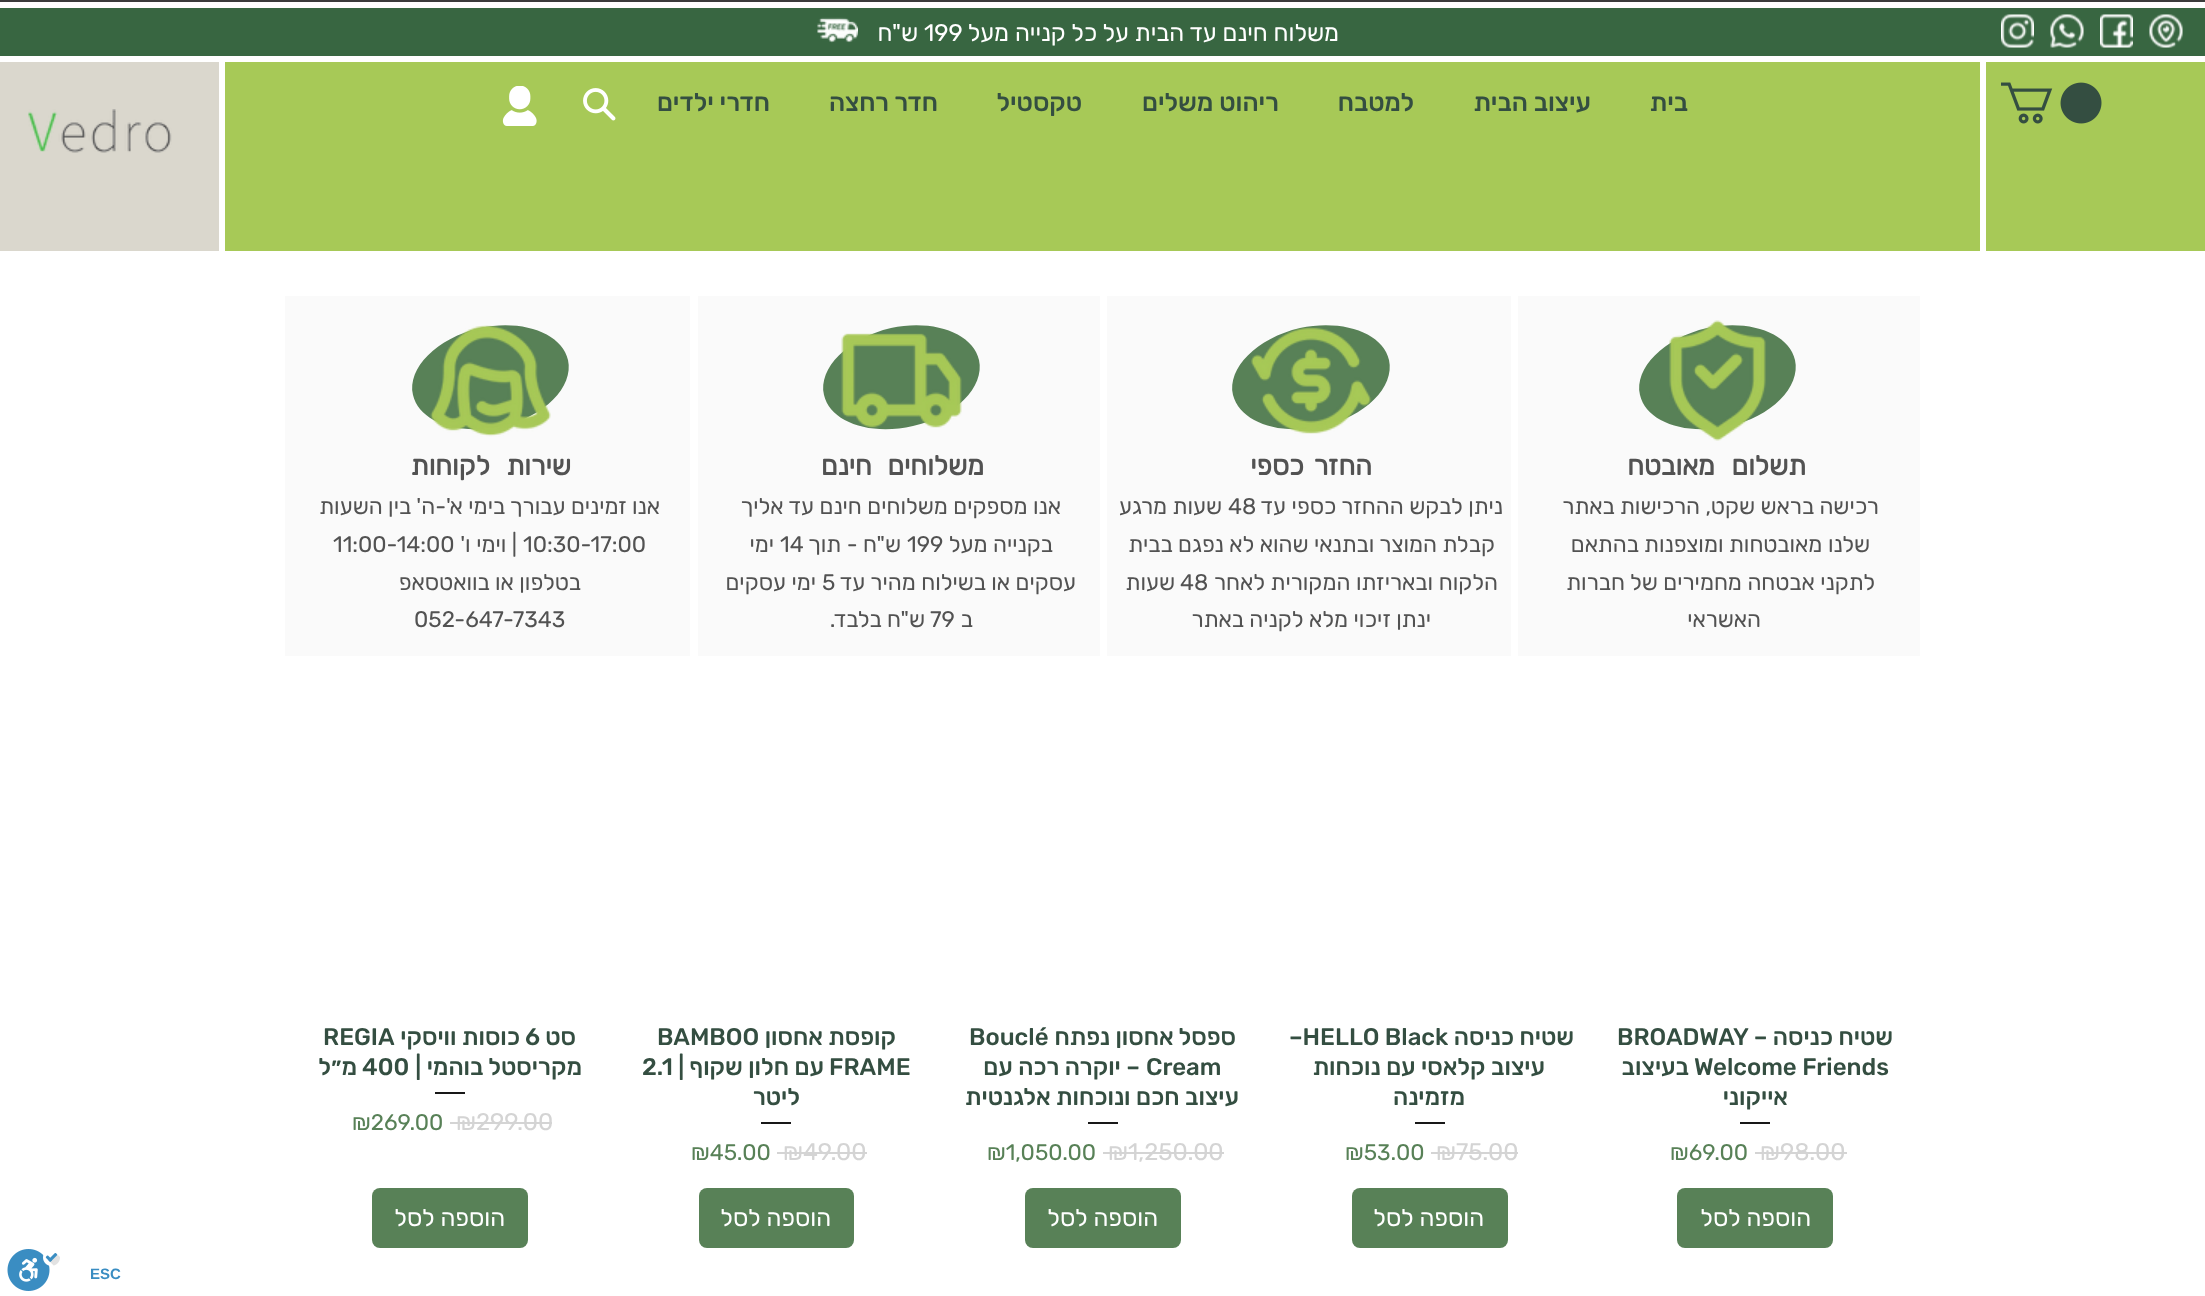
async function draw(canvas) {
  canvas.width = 2205;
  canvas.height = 1296;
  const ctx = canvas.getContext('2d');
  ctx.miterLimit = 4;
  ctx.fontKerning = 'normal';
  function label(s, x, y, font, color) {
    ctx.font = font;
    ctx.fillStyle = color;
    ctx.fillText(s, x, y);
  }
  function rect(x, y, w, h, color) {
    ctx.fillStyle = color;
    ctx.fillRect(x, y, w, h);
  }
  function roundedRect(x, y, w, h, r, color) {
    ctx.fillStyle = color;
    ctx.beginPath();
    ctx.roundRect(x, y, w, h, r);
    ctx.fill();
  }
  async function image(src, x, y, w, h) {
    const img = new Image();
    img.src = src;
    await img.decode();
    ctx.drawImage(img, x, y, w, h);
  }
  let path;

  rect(0, 0, 2205, 1296, '#fff');
  rect(0, 0, 2205, 2, '#3b3b3b');
  rect(0, 8, 2205, 48, '#386641');
  await image('assets/img1.png', 2149, 14, 34, 34);
  await image('assets/img2.png', 2100, 14, 33, 34);
  await image('assets/img3.png', 2050, 14, 34, 34);
  await image('assets/img4.png', 2001, 14, 33, 34);
  ctx.direction = 'rtl';
  label('משלוח חינם עד הבית על כל קנייה מעל', 1339, 41, '24px Rubik', '#fff');
  ctx.direction = 'ltr';
  label('199', 924, 41, '24px Rubik', '#fff');
  ctx.direction = 'rtl';
  label('ש"ח', 918, 41, '24px Rubik', '#fff');
  await image('assets/img5.png', 817, 17, 41, 26);
  rect(1986, 62, 219, 189, '#a7c957');
  await image('assets/img6.png', 2001, 82, 101, 42);
  rect(225, 62, 1755, 189, '#a7c957');
  label('בית', 1688, 111, '500 25.5px Rubik', '#344e41');
  label('עיצוב הבית', 1591, 111, '500 25.5px Rubik', '#344e41');
  label('למטבח', 1414, 111, '500 25.5px Rubik', '#344e41');
  label('ריהוט משלים', 1279, 111, '500 25.5px Rubik', '#344e41');
  label('טקסטיל', 1082, 111, '500 25.5px Rubik', '#344e41');
  label('חדר רחצה', 938, 111, '500 25.5px Rubik', '#344e41');
  label('חדרי ילדים', 770, 111, '500 25.5px Rubik', '#344e41');
  await image('assets/img7.png', 583, 88, 33, 33);
  await image('assets/img8.png', 502, 86, 35, 40);
  rect(0, 62, 219, 189, '#dad7cd');
  await image('assets/img9.png', 28, 109, 144, 44);
  rect(1518, 296, 402, 360, '#fafafa');
  ctx.fillStyle = '#588157';
  path = new Path2D('M1795 360C1801 387 1771 417 1729 426C1686 436 1646 422 1640 395C1634 368 1664 338 1707 328C1749 319 1789 333 1795 360Z');
  ctx.fill(path);
  await image('assets/img10.png', 1669, 320, 97, 121);
  ctx.wordSpacing = '10px';
  label('תשלום מאובטח', 1806, 475, 'bold 27px Rubik', '#525252');
  ctx.wordSpacing = '0px';
  label('רכישה בראש שקט, הרכישות באתר', 1879, 514, '22.5px Rubik', '#525252');
  label('שלנו מאובטחות ומוצפנות בהתאם', 1870, 552, '22.5px Rubik', '#525252');
  label('לתקני אבטחה מחמירים של חברות', 1875, 590, '22.5px Rubik', '#525252');
  label('האשראי', 1761, 627, '22.5px Rubik', '#525252');
  rect(1107, 296, 404, 360, '#fafafa');
  ctx.fillStyle = '#588157';
  path = new Path2D('M1389 360C1395 387 1365 417 1322 426C1279 436 1240 422 1233 395C1227 368 1257 338 1300 328C1343 319 1383 333 1389 360Z');
  ctx.fill(path);
  await image('assets/img11.png', 1251, 327, 121, 107);
  ctx.wordSpacing = '4px';
  label('החזר כספי', 1372, 475, 'bold 27px Rubik', '#525252');
  ctx.wordSpacing = '0px';
  label('ניתן לבקש ההחזר כספי עד', 1503, 514, '22.5px Rubik', '#525252');
  ctx.direction = 'ltr';
  label('48', 1228, 514, '22.5px Rubik', '#525252');
  ctx.direction = 'rtl';
  label('שעות מרגע', 1222, 514, '22.5px Rubik', '#525252');
  label('קבלת המוצר ובתנאי שהוא לא נפגם בבית', 1495, 552, '22.5px Rubik', '#525252');
  label('הלקוח ובאריזתו המקורית לאחר', 1498, 590, '22.5px Rubik', '#525252');
  ctx.direction = 'ltr';
  label('48', 1180, 590, '22.5px Rubik', '#525252');
  ctx.direction = 'rtl';
  label('שעות', 1175, 590, '22.5px Rubik', '#525252');
  label('ינתן זיכוי מלא לקניה באתר', 1431, 627, '22.5px Rubik', '#525252');
  rect(698, 296, 402, 360, '#fafafa');
  ctx.fillStyle = '#588157';
  path = new Path2D('M979 360C985 387 955 417 913 426C870 436 830 422 824 395C818 368 848 338 891 328C933 319 973 333 979 360Z');
  ctx.fill(path);
  await image('assets/img12.png', 841, 333, 121, 95);
  ctx.wordSpacing = '9px';
  label('משלוחים חינם', 984, 475, 'bold 27px Rubik', '#525252');
  ctx.wordSpacing = '0px';
  label('אנו מספקים משלוחים חינם עד אליך', 1061, 514, '22.5px Rubik', '#525252');
  label('בקנייה מעל', 1053, 552, '22.5px Rubik', '#525252');
  ctx.direction = 'ltr';
  label('199', 907, 552, '22.5px Rubik', '#525252');
  ctx.direction = 'rtl';
  label('ש"ח - תוך', 901, 552, '22.5px Rubik', '#525252');
  ctx.direction = 'ltr';
  label('14', 780, 552, '22.5px Rubik', '#525252');
  ctx.direction = 'rtl';
  label('ימי', 774, 552, '22.5px Rubik', '#525252');
  label('עסקים או בשילוח מהיר עד', 1076, 590, '22.5px Rubik', '#525252');
  ctx.direction = 'ltr';
  label('5', 822, 590, '22.5px Rubik', '#525252');
  ctx.direction = 'rtl';
  label('ימי עסקים', 816, 590, '22.5px Rubik', '#525252');
  label('ב', 973, 627, '22.5px Rubik', '#525252');
  ctx.direction = 'ltr';
  label('79', 930, 627, '22.5px Rubik', '#525252');
  ctx.direction = 'rtl';
  label('ש"ח בלבד.', 925, 627, '22.5px Rubik', '#525252');
  rect(285, 296, 405, 360, '#fafafa');
  ctx.fillStyle = '#588157';
  path = new Path2D('M568 360C574 387 544 417 502 426C459 436 419 422 413 395C407 368 437 338 480 328C522 319 562 333 568 360Z');
  ctx.fill(path);
  await image('assets/img13.png', 430, 325, 121, 112);
  ctx.wordSpacing = '10px';
  label('שירות לקוחות', 571, 475, 'bold 27px Rubik', '#525252');
  ctx.wordSpacing = '0px';
  label('אנו זמינים עבורך בימי א\'-ה\' בין השעות', 660, 514, '22.5px Rubik', '#525252');
  ctx.direction = 'ltr';
  label('10:30-17:00', 523, 552, '22.5px Rubik', '#525252');
  ctx.direction = 'rtl';
  label('| וימי ו\'', 517, 552, '22.5px Rubik', '#525252');
  ctx.direction = 'ltr';
  label('11:00-14:00', 333, 552, '22.5px Rubik', '#525252');
  ctx.direction = 'rtl';
  label('בטלפון או בוואטסאפ', 581, 590, '22.5px Rubik', '#525252');
  ctx.direction = 'ltr';
  label('052-647-7343', 414, 627, '22.5px Rubik', '#525252');
  ctx.direction = 'rtl';
  label('שטיח כניסה', 1893, 1045, '500 24px Rubik', '#344e41');
  ctx.direction = 'ltr';
  label('BROADWAY –', 1617, 1045, '500 24px Rubik', '#344e41');
  label('Welcome Friends', 1694, 1075, '500 24px Rubik', '#344e41');
  ctx.direction = 'rtl';
  label('בעיצוב', 1689, 1075, '500 24px Rubik', '#344e41');
  label('אייקוני', 1788, 1105, '500 24px Rubik', '#344e41');
  rect(1740, 1122, 30, 2, '#181818');
  ctx.direction = 'ltr';
  label('₪98.00', 1760, 1160, '24px Rubik', '#d4d4d4');
  rect(1755, 1152, 92, 2, '#d4d4d4');
  label('₪69.00', 1670, 1160, '22.5px Rubik', '#588157');
  roundedRect(1677, 1188, 156, 60, 8, '#588157');
  ctx.direction = 'rtl';
  label('הוספה לסל', 1811, 1226, '24px Rubik', '#fff');
  label('שטיח כניסה', 1574, 1045, '500 24px Rubik', '#344e41');
  ctx.direction = 'ltr';
  label('–HELLO Black', 1289, 1045, '500 24px Rubik', '#344e41');
  ctx.direction = 'rtl';
  label('עיצוב קלאסי עם נוכחות', 1545, 1075, '500 24px Rubik', '#344e41');
  label('מזמינה', 1465, 1105, '500 24px Rubik', '#344e41');
  rect(1415, 1122, 30, 2, '#181818');
  rect(1431, 1152, 26, 2, '#d4d4d4');
  ctx.direction = 'ltr';
  label('75.00', 1456, 1160, '24px Rubik', '#d4d4d4');
  label('₪', 1436, 1160, '24px Rubik', '#d4d4d4');
  rect(1457, 1152, 61, 2, '#d4d4d4');
  label('₪53.00', 1345, 1160, '22.5px Rubik', '#588157');
  roundedRect(1352, 1188, 156, 60, 8, '#588157');
  ctx.direction = 'rtl';
  label('הוספה לסל', 1484, 1226, '24px Rubik', '#fff');
  label('ספסל אחסון נפתח', 1236, 1045, '500 24px Rubik', '#344e41');
  ctx.direction = 'ltr';
  label('Bouclé', 969, 1045, '500 24px Rubik', '#344e41');
  label('Cream', 1146, 1075, '500 24px Rubik', '#344e41');
  ctx.direction = 'rtl';
  label('– יוקרה רכה עם', 1140, 1075, '500 24px Rubik', '#344e41');
  label('עיצוב חכם ונוכחות אלגנטית', 1239, 1105, '500 24px Rubik', '#344e41');
  rect(1088, 1122, 30, 2, '#181818');
  ctx.direction = 'ltr';
  label('₪1,250.00', 1108, 1160, '24px Rubik', '#d4d4d4');
  rect(1103, 1152, 121, 2, '#d4d4d4');
  label('₪1,050.00', 987, 1160, '22.5px Rubik', '#588157');
  roundedRect(1025, 1188, 156, 60, 8, '#588157');
  ctx.direction = 'rtl';
  label('הוספה לסל', 1158, 1226, '24px Rubik', '#fff');
  label('קופסת אחסון', 896, 1045, '500 24px Rubik', '#344e41');
  ctx.direction = 'ltr';
  label('BAMBOO', 657, 1045, '500 24px Rubik', '#344e41');
  label('FRAME', 829, 1075, '500 24px Rubik', '#344e41');
  ctx.direction = 'rtl';
  label('עם חלון שקוף |', 824, 1075, '500 24px Rubik', '#344e41');
  ctx.direction = 'ltr';
  label('2.1', 642, 1075, '500 24px Rubik', '#344e41');
  ctx.direction = 'rtl';
  label('ליטר', 800, 1105, '500 24px Rubik', '#344e41');
  rect(761, 1122, 30, 2, '#181818');
  ctx.direction = 'ltr';
  label('₪49.00', 783, 1160, '24px Rubik', '#d4d4d4');
  rect(777, 1152, 90, 2, '#d4d4d4');
  label('₪45.00', 691, 1160, '22.5px Rubik', '#588157');
  roundedRect(699, 1188, 155, 60, 8, '#588157');
  ctx.direction = 'rtl';
  label('הוספה לסל', 831, 1226, '24px Rubik', '#fff');
  label('סט', 576, 1045, '500 24px Rubik', '#344e41');
  ctx.direction = 'ltr';
  label('6', 525, 1045, '500 24px Rubik', '#344e41');
  ctx.direction = 'rtl';
  label('כוסות וויסקי', 520, 1045, '500 24px Rubik', '#344e41');
  ctx.direction = 'ltr';
  label('REGIA', 323, 1045, '500 24px Rubik', '#344e41');
  ctx.direction = 'rtl';
  label('מקריסטל בוהמי |', 582, 1075, '500 24px Rubik', '#344e41');
  ctx.direction = 'ltr';
  label('400', 362, 1075, '500 24px Rubik', '#344e41');
  ctx.direction = 'rtl';
  label('מ״ל', 357, 1075, '500 24px Rubik', '#344e41');
  rect(435, 1092, 30, 2, '#181818');
  ctx.direction = 'ltr';
  label('₪299.00', 456, 1130, '24px Rubik', '#d4d4d4');
  rect(450, 1122, 102, 2, '#d4d4d4');
  label('₪269.00', 352, 1130, '22.5px Rubik', '#588157');
  roundedRect(372, 1188, 156, 60, 8, '#588157');
  ctx.direction = 'rtl';
  label('הוספה לסל', 505, 1226, '24px Rubik', '#fff');
  ctx.direction = 'ltr';
  label('ESC', 90, 1279, 'bold 15px Liberation Sans', '#3a8dc2');
  await image('assets/img14.png', 7, 1249, 53, 42);
}

draw(document.querySelector('canvas'));
